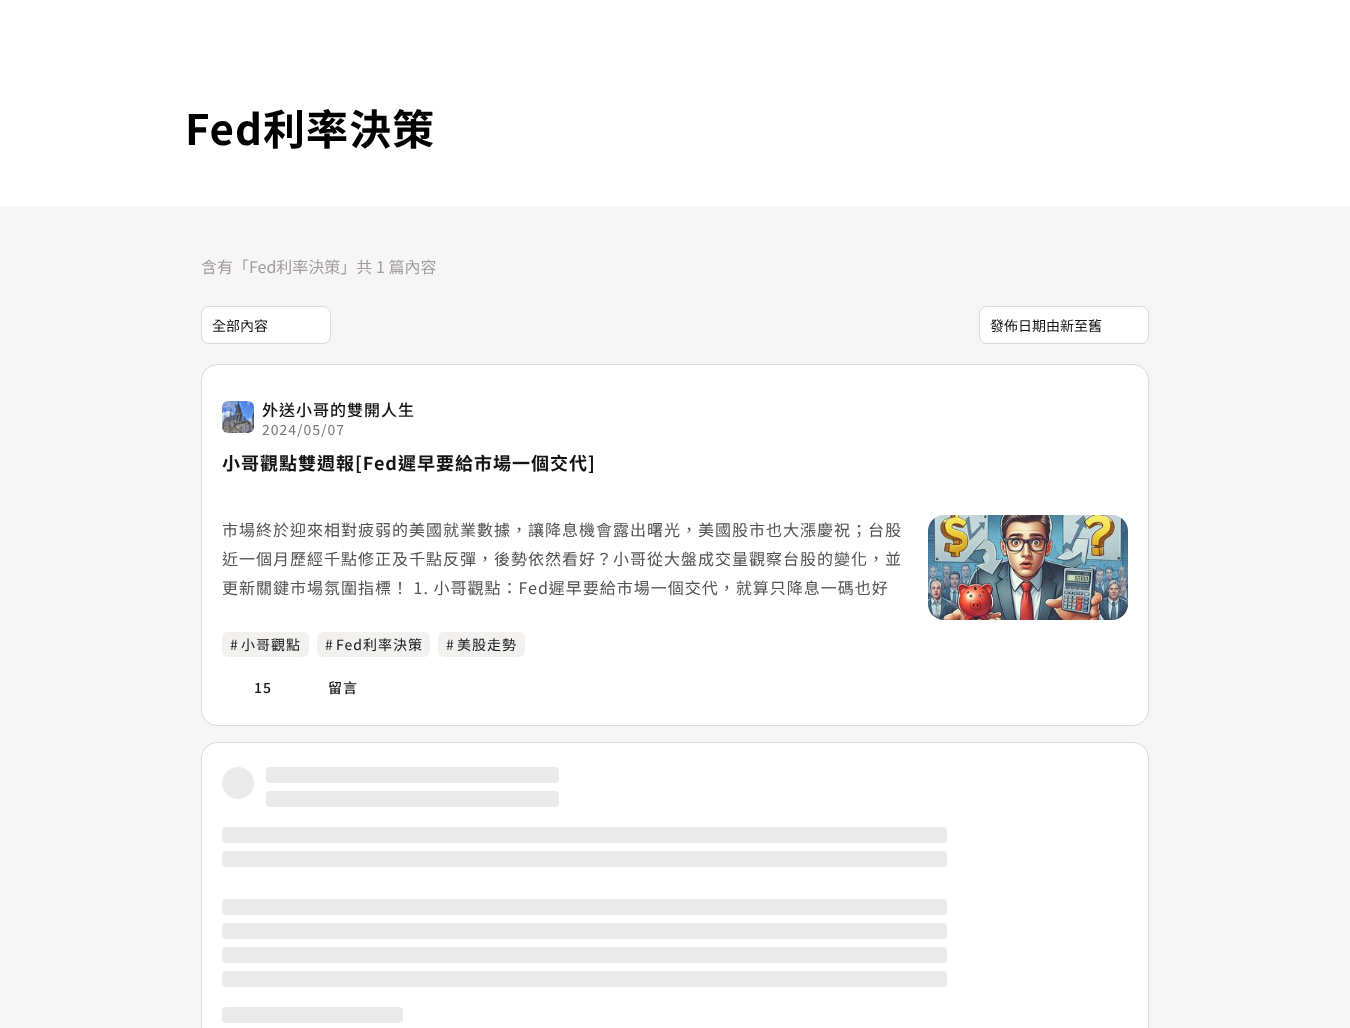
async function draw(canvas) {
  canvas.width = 1350;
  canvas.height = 1028;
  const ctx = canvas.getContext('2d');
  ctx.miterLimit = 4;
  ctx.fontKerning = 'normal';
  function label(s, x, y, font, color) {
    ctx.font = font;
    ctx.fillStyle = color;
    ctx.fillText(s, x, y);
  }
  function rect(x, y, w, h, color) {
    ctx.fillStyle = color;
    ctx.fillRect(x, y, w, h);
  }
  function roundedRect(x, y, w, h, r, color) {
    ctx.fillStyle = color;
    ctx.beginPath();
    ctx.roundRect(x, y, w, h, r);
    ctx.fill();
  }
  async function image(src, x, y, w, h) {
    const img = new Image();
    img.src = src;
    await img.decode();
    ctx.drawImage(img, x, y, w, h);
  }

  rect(0, 0, 1350, 1028, '#fff');
  rect(0, 206, 1350, 822, '#f6f6f6');
  ctx.letterSpacing = '1px';
  label('Fed利率決策', 185, 145, 'bold 42px Noto Sans TC', '#000');
  ctx.letterSpacing = '0px';
  label('含有「Fed利率決策」共 1 篇內容', 201, 273, '16px Noto Sans TC', '#a29c9b');
  ctx.fillStyle = '#fff';
  ctx.beginPath();
  ctx.roundRect(201.5, 306.5, 129, 37, 7.5);
  ctx.fill();
  ctx.strokeStyle = '#ddd9d8';
  ctx.stroke();
  label('全部內容', 212, 331, '14px Noto Sans TC', '#141413');
  ctx.fillStyle = '#fff';
  ctx.beginPath();
  ctx.roundRect(979.5, 306.5, 169, 37, 7.5);
  ctx.fill();
  ctx.stroke();
  label('發佈日期由新至舊', 990, 331, '14px Noto Sans TC', '#141413');
  ctx.fillStyle = '#fff';
  ctx.beginPath();
  ctx.roundRect(201.5, 364.5, 947, 361, 15.5);
  ctx.fill();
  ctx.stroke();
  await image('assets/img1.png', 222, 401, 32, 32);
  ctx.letterSpacing = '1px';
  label('外送小哥的雙開人生', 262, 416, '500 16px Noto Sans TC', '#141413');
  ctx.save();
  ctx.beginPath();
  ctx.rect(262, 421, 153, 16);
  ctx.clip();
  label('2024/05/07', 262, 435, '14px Noto Sans TC', '#7a7574');
  ctx.restore();
  label('小哥觀點雙週報[Fed遲早要給市場一個交代]', 222, 470, 'bold 18px Noto Sans TC', '#141413');
  label('市場終於迎來相對疲弱的美國就業數據，讓降息機會露出曙光，美國股市也大漲慶祝；台股', 222, 536, '16px Noto Sans TC', '#535150');
  label('近一個月歷經千點修正及千點反彈，後勢依然看好？小哥從大盤成交量觀察台股的變化，並', 222, 565, '16px Noto Sans TC', '#535150');
  label('更新關鍵市場氛圍指標！ 1. 小哥觀點：Fed遲早要給市場一個交代，就算只降息一碼也好', 222, 594, '16px Noto Sans TC', '#535150');
  await image('assets/img2.png', 928, 515, 200, 105);
  await image('assets/img3.png', 928, 515, 200, 105);
  roundedRect(222, 632, 87, 25, 6, '#f2f1f0');
  label('#', 230, 650, '14px Noto Sans TC', '#141413');
  label('小哥觀點', 241, 650, '14px Noto Sans TC', '#141413');
  roundedRect(317, 632, 113, 25, 6, '#f2f1f0');
  label('#', 325, 650, '14px Noto Sans TC', '#141413');
  label('Fed利率決策', 336, 650, '14px Noto Sans TC', '#141413');
  roundedRect(438, 632, 87, 25, 6, '#f2f1f0');
  label('#', 446, 650, '14px Noto Sans TC', '#141413');
  label('美股走勢', 457, 650, '14px Noto Sans TC', '#141413');
  label('15', 254, 693, '500 14px Noto Sans TC', '#141413');
  label('留言', 328, 693, '500 14px Noto Sans TC', '#141413');
  ctx.fillStyle = '#fff';
  ctx.beginPath();
  ctx.roundRect(201.5, 742.5, 947, 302, 15.5);
  ctx.fill();
  ctx.stroke();
  ctx.fillStyle = '#ebebeb';
  ctx.beginPath();
  ctx.arc(238, 783, 16, 0, 2 * Math.PI);
  ctx.fill();
  roundedRect(266, 767, 293, 16, 4, '#ebebeb');
  roundedRect(266, 791, 293, 16, 4, '#ebebeb');
  roundedRect(222, 827, 725, 16, 4, '#ebebeb');
  roundedRect(222, 851, 725, 16, 4, '#ebebeb');
  roundedRect(222, 899, 725, 16, 4, '#ebebeb');
  roundedRect(222, 923, 725, 16, 4, '#ebebeb');
  roundedRect(222, 947, 725, 16, 4, '#ebebeb');
  roundedRect(222, 971, 725, 16, 4, '#ebebeb');
  roundedRect(222, 1007, 181, 16, 4, '#ebebeb');
}

draw(document.querySelector('canvas'));
